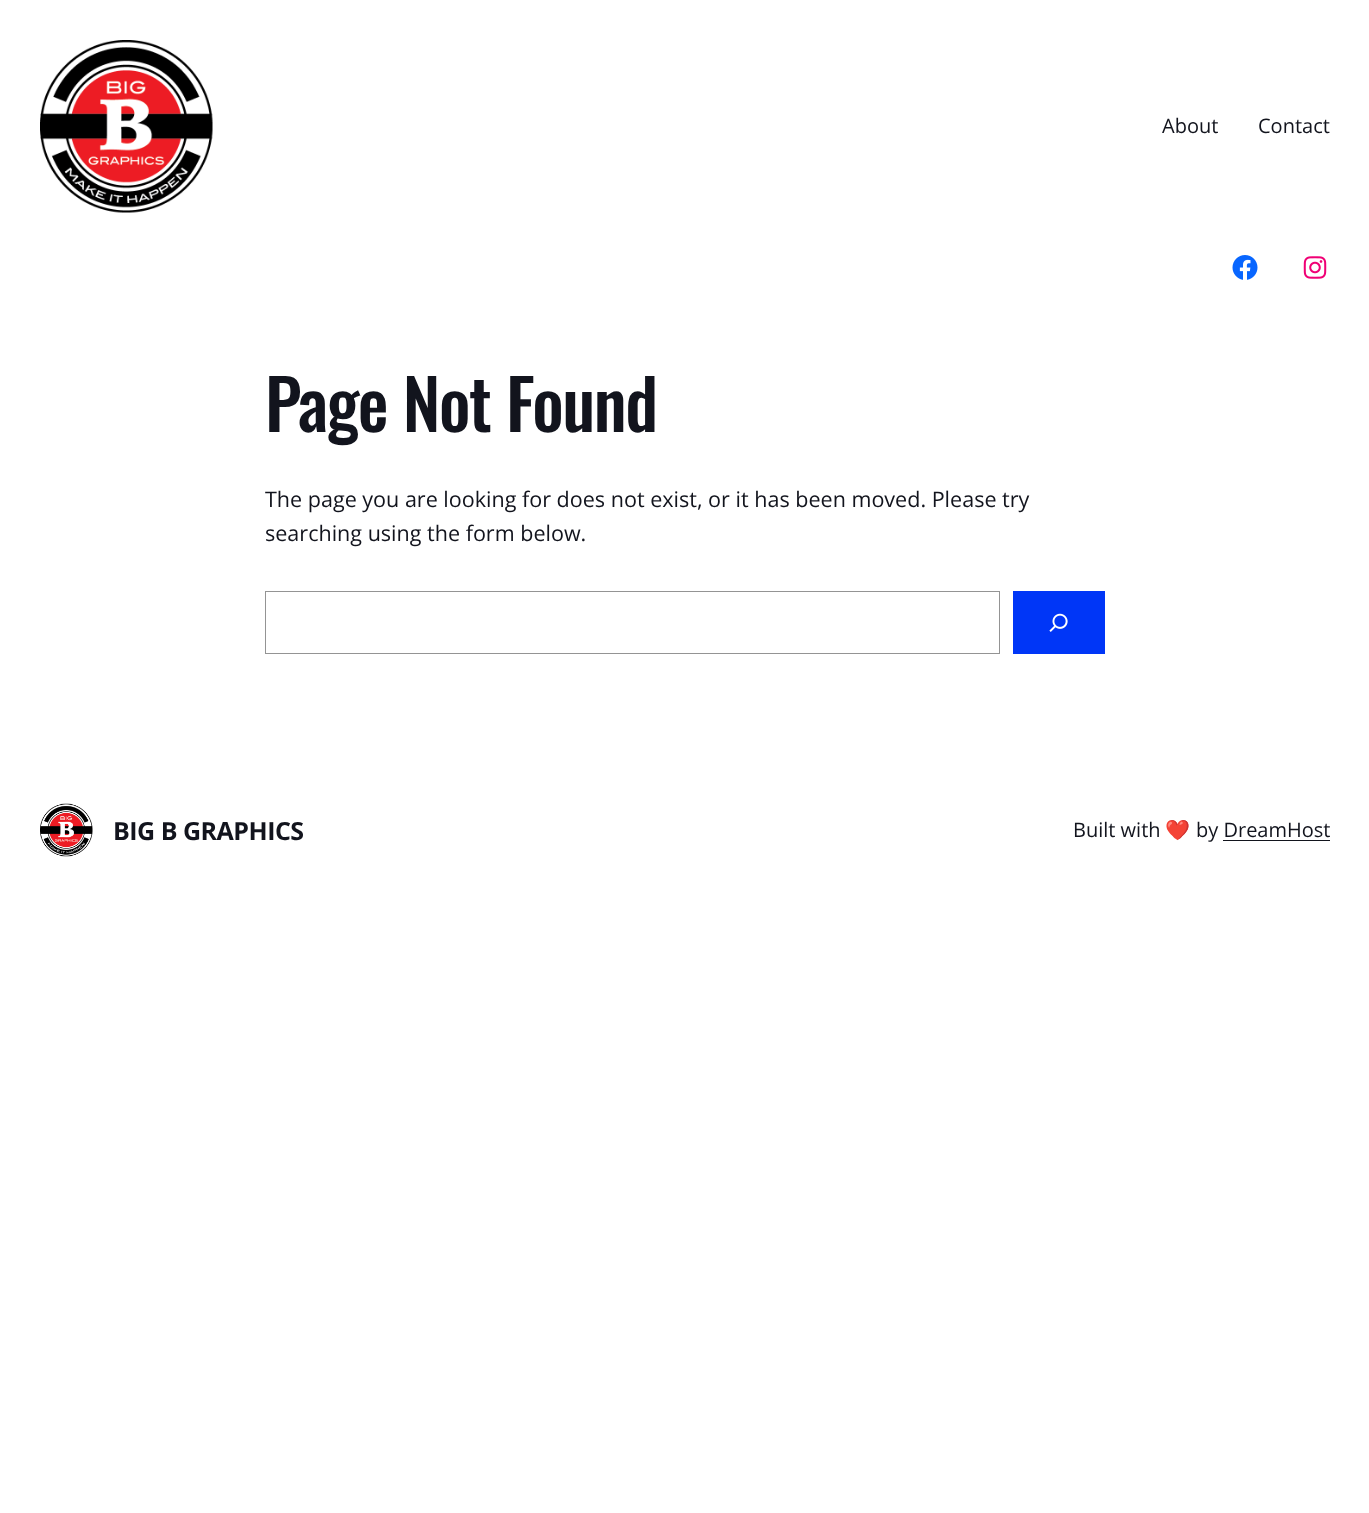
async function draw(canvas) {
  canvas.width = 1369;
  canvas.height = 1513;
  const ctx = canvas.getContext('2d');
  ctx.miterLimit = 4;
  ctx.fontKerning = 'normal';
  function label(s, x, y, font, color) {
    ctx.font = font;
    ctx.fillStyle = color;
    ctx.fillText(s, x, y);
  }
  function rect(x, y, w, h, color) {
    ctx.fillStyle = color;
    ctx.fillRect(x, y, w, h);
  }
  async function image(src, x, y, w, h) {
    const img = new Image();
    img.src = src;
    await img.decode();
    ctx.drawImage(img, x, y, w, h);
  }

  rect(0, 0, 1369, 1513, '#fff');
  await image('assets/img1.png', 40, 40, 173, 173);
  label('About', 1162, 133, '20px Open Sans', '#12141d');
  label('Contact', 1258, 133, '20px Open Sans', '#12141d');
  await image('assets/img2.png', 1232, 255, 26, 25);
  await image('assets/img3.png', 1303, 256, 24, 23);
  ctx.letterSpacing = '-1.4px';
  label('Page Not Found', 265, 432, '500 69.25px Oswald', '#12141d');
  ctx.letterSpacing = '0px';
  label('The page you are looking for does not exist, or it has been moved. Please try', 265, 507, '21.55px Open Sans', '#12141d');
  label('searching using the form below.', 265, 541, '21.55px Open Sans', '#12141d');
  ctx.strokeStyle = '#949494';
  ctx.strokeRect(265.5, 591.5, 734, 62);
  rect(1013, 591, 92, 63, '#0036f7');
  await image('assets/img4.png', 1049, 613, 19, 19);
  await image('assets/img5.png', 40, 803, 53, 54);
  ctx.letterSpacing = '-0.5px';
  label('BIG B GRAPHICS', 113, 840, 'bold 25px Open Sans', '#12141d');
  ctx.letterSpacing = '0px';
  label('Built with', 1073, 837, '20px Open Sans', '#12141d');
  label('❤️', 1165, 837, '20px Noto Color Emoji', '#12141d');
  label('by DreamHost', 1196, 837, '20px Open Sans', '#12141d');
  rect(1223, 840, 107, 1, '#12141d');
}

draw(document.querySelector('canvas'));
